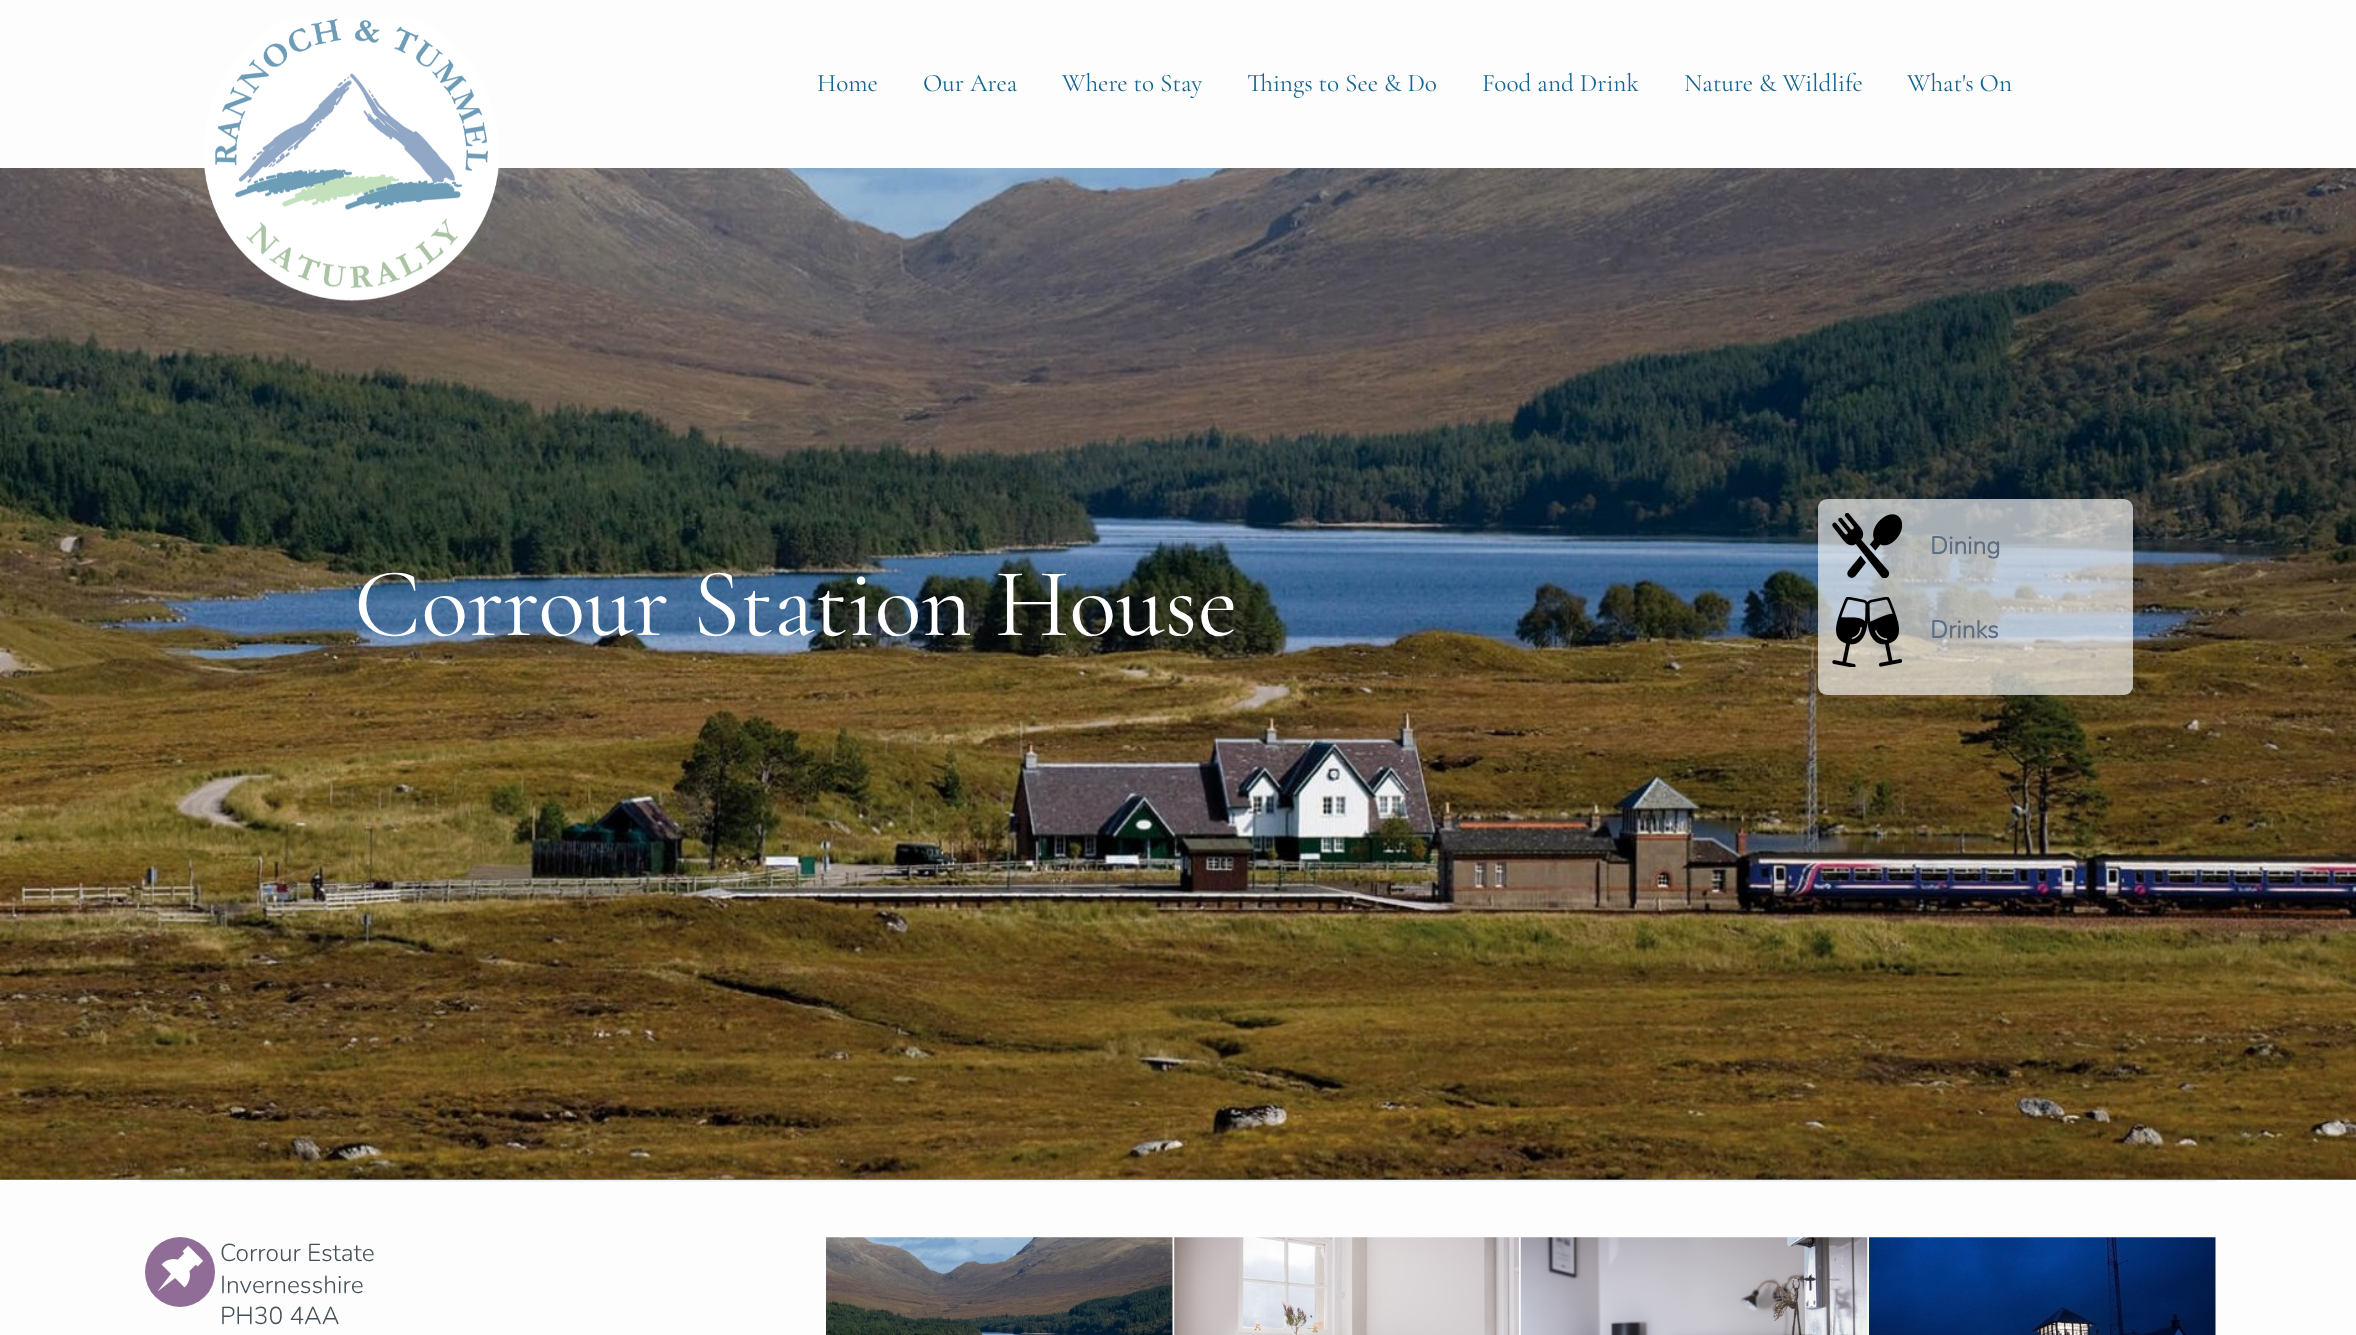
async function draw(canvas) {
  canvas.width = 2356;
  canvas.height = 1335;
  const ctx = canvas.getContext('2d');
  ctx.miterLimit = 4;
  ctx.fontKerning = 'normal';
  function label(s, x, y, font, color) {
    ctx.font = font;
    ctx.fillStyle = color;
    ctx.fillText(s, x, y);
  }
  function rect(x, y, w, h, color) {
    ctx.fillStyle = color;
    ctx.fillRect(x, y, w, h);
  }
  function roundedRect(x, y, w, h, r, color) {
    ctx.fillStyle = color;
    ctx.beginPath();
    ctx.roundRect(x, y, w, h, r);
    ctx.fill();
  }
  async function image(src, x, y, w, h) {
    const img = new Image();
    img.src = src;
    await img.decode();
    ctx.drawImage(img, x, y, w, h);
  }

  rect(0, 0, 2356, 1335, '#fdfdfd');
  rect(0, 1179, 2356, 1, '#6d9cb7');
  await image('assets/img2.png', 0, 168, 2356, 1012);
  await image('assets/img1.png', 204, 18, 295, 283);
  label('Home', 817, 91, '25.25px Cormorant Garamond', '#156592');
  label('Our Area', 923, 91, '25.25px Cormorant Garamond', '#156592');
  label('Where to Stay', 1062, 91, '25.25px Cormorant Garamond', '#156592');
  label('Things to See & Do', 1247, 91, '25.25px Cormorant Garamond', '#156592');
  label('Food and Drink', 1482, 91, '25.25px Cormorant Garamond', '#156592');
  label('Nature & Wildlife', 1684, 91, '25.25px Cormorant Garamond', '#156592');
  label('What\'s On', 1907, 91, '25.25px Cormorant Garamond', '#156592');
  label('Corrour Station House', 354, 635, '98px Cormorant Garamond', '#fff');
  roundedRect(1818, 499, 315, 196, 9, '#ffffffa6');
  await image('assets/img3.png', 1832, 513, 70, 65);
  label('Dining', 1930, 554, 'bold 24.5px Nunito', '#5c6d84');
  await image('assets/img4.png', 1832, 597, 70, 70);
  label('Drinks', 1930, 638, 'bold 24.5px Nunito', '#5c6d84');
  rect(140, 1180, 2077, 2, '#f1f1f1');
  ctx.fillStyle = '#8f6d97';
  ctx.beginPath();
  ctx.arc(180, 1272, 35, 0, 2 * Math.PI);
  ctx.fill();
  await image('assets/img5.png', 158, 1246, 45, 45);
  label('Corrour Estate', 220, 1261, '200 24.5px Nunito', '#445158');
  label('Invernesshire', 220, 1293, '200 24.5px Nunito', '#445158');
  label('PH30 4AA', 220, 1324, '200 24.5px Nunito', '#445158');
  await image('assets/img6.png', 826, 1237, 347, 98);
  await image('assets/img7.png', 1174, 1237, 345, 98);
  await image('assets/img8.png', 1520, 1237, 348, 98);
  await image('assets/img9.png', 1869, 1237, 347, 98);
}

draw(document.querySelector('canvas'));
